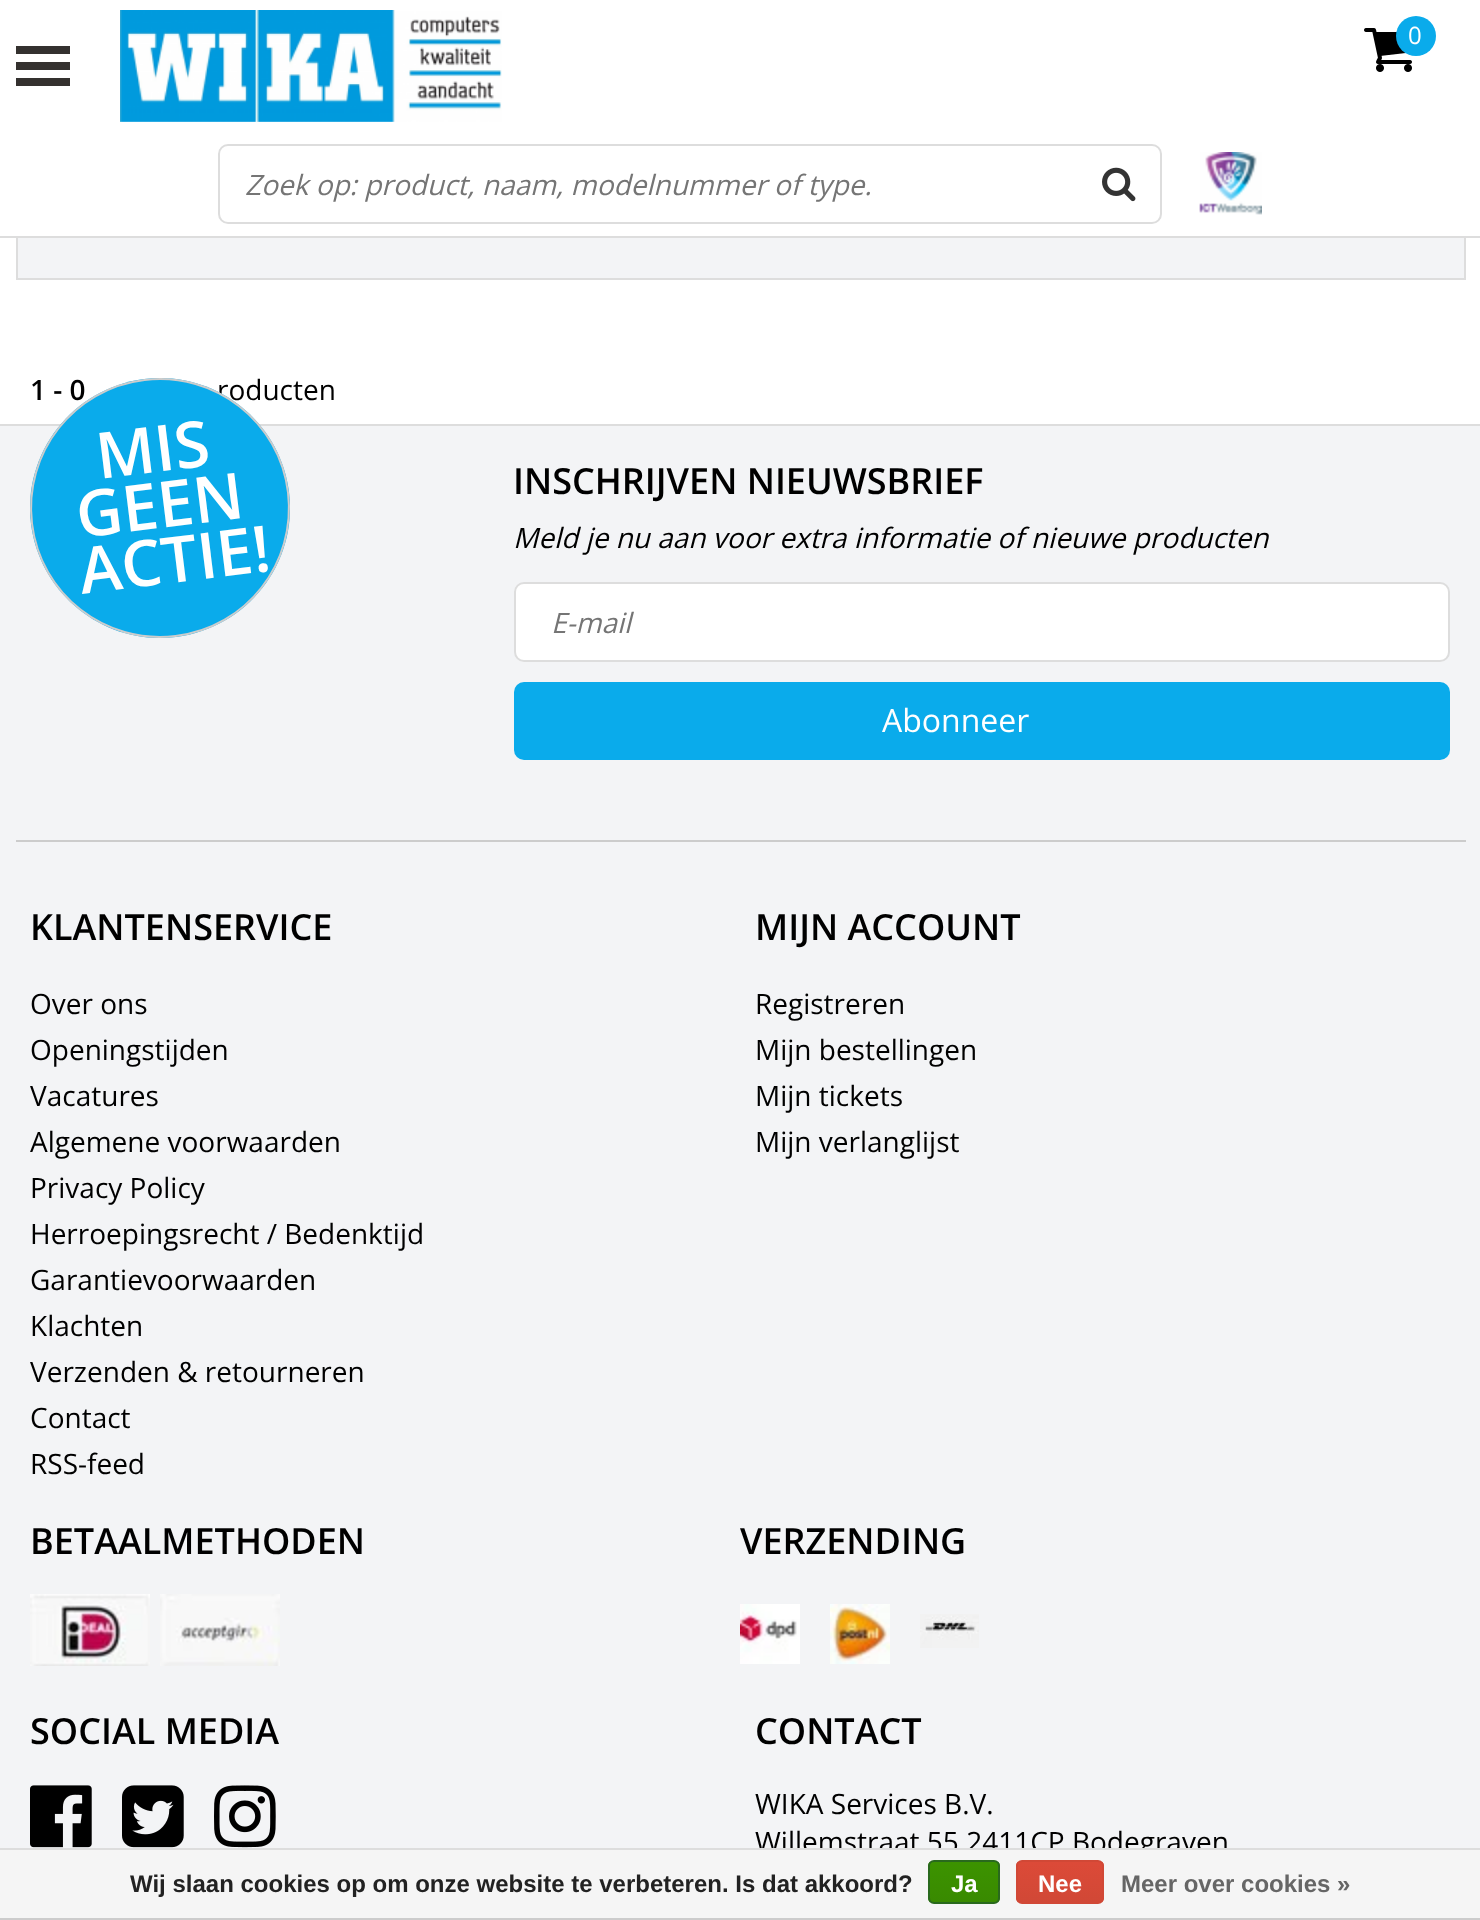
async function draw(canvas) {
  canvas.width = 1480;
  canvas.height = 1920;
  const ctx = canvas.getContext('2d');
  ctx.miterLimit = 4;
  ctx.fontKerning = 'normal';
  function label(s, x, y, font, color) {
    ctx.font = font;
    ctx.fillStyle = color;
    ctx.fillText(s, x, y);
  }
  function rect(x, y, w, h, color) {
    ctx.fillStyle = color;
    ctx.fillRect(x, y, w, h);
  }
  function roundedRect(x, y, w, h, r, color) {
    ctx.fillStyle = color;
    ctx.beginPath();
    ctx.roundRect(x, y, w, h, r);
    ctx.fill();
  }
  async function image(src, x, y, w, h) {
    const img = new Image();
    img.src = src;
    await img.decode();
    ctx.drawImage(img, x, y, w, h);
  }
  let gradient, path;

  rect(0, 0, 1480, 1920, '#fff');
  rect(18, 238, 1446, 40, '#f3f4f6');
  ctx.strokeStyle = '#ddd';
  ctx.lineWidth = 2;
  ctx.strokeRect(17, 29, 1448, 250);
  rect(16, 28, 1450, 208, '#fff');
  rect(0, 236, 1480, 2, '#ddd');
  await image('assets/img1.png', 120, 10, 382, 112);
  await image('assets/img2.png', 1364, 28, 48, 44);
  ctx.fillStyle = '#0aabeb';
  ctx.beginPath();
  ctx.arc(1416, 36, 20, 0, 2 * Math.PI);
  ctx.fill();
  label('0', 1408, 44, '24px Open Sans', '#fff');
  rect(16, 46, 54, 8, '#34312f');
  rect(16, 62, 54, 8, '#34312f');
  rect(16, 78, 54, 8, '#34312f');
  ctx.beginPath();
  ctx.roundRect(219, 145, 942, 78, 9);
  ctx.stroke();
  label('Zoek op: product, naam, modelnummer of type.', 245, 195, 'italic 28px Open Sans', '#757575');
  await image('assets/img3.png', 1102, 167, 34, 35);
  await image('assets/img4.png', 1199, 152, 63, 63);
  label('1 - 0', 30, 400, '600 28px Open Sans', '#000');
  label('roducten', 217, 400, '28px Open Sans', '#000');
  rect(0, 426, 1480, 1422, '#f3f4f6');
  rect(0, 424, 1480, 2, '#ddd');
  ctx.fillStyle = '#0aabeb';
  path = new Path2D('M144 379C215 370 280 421 289 492C298 563 247 628 176 637C105 646 40 595 31 524C22 453 73 388 144 379Z');
  ctx.fill(path);
  path = new Path2D('M144.5 380C215 371.5 279.5 421.5 288 492.5C296.5 563 246.5 627.5 175.5 636C105 644.5 40.5 594.5 32 523.5C23.5 453 73.5 388.5 144.5 380Z');
  ctx.strokeStyle = '#ccc';
  ctx.stroke(path);
  ctx.font = '600 64px Open Sans';
  ctx.fillStyle = '#fff';
  ctx.save();
  ctx.translate(99, 479);
  ctx.rotate(-7 * Math.PI / 180);
  ctx.fillText('MIS', 0, 0);
  ctx.restore();
  ctx.save();
  ctx.translate(79, 538);
  ctx.rotate(-7 * Math.PI / 180);
  ctx.fillText('GEEN', 0, 0);
  ctx.restore();
  ctx.save();
  ctx.translate(82, 594);
  ctx.rotate(-7 * Math.PI / 180);
  ctx.fillText('ACTIE!', 0, 0);
  ctx.restore();
  label('INSCHRIJVEN NIEUWSBRIEF', 513, 494, '600 36px Open Sans', '#000');
  label('Meld je nu aan voor extra informatie of nieuwe producten', 513, 548, 'italic 28px Open Sans', '#000');
  ctx.fillStyle = '#fff';
  ctx.beginPath();
  ctx.roundRect(515, 583, 934, 78, 9);
  ctx.fill();
  ctx.strokeStyle = '#ddd';
  ctx.stroke();
  label('E-mail', 551, 633, 'italic 28px Open Sans', '#757575');
  roundedRect(514, 682, 936, 78, 10, '#0aabeb');
  label('Abonneer', 882, 732, '32px Open Sans', '#fff');
  rect(16, 840, 1450, 2, '#ccc');
  label('KLANTENSERVICE', 30, 940, '600 36px Open Sans', '#000');
  label('Over ons', 30, 1014, '28px Open Sans', '#000');
  label('Openingstijden', 30, 1060, '28px Open Sans', '#000');
  label('Vacatures', 30, 1106, '28px Open Sans', '#000');
  label('Algemene voorwaarden', 30, 1152, '28px Open Sans', '#000');
  label('Privacy Policy', 30, 1198, '28px Open Sans', '#000');
  label('Herroepingsrecht / Bedenktijd', 30, 1244, '28px Open Sans', '#000');
  label('Garantievoorwaarden', 30, 1290, '28px Open Sans', '#000');
  label('Klachten', 30, 1336, '28px Open Sans', '#000');
  label('Verzenden & retourneren', 30, 1382, '28px Open Sans', '#000');
  label('Contact', 30, 1428, '28px Open Sans', '#000');
  label('RSS-feed', 30, 1474, '28px Open Sans', '#000');
  label('MIJN ACCOUNT', 755, 940, '600 36px Open Sans', '#000');
  label('Registreren', 755, 1014, '28px Open Sans', '#000');
  label('Mijn bestellingen', 755, 1060, '28px Open Sans', '#000');
  label('Mijn tickets', 755, 1106, '28px Open Sans', '#000');
  label('Mijn verlanglijst', 755, 1152, '28px Open Sans', '#000');
  label('BETAALMETHODEN', 30, 1554, '600 36px Open Sans', '#000');
  await image('assets/img5.png', 30, 1594, 120, 72);
  await image('assets/img6.png', 160, 1594, 120, 72);
  label('VERZENDING', 740, 1554, '600 36px Open Sans', '#000');
  await image('assets/img7.png', 740, 1604, 60, 60);
  await image('assets/img8.png', 830, 1604, 60, 60);
  await image('assets/img9.png', 920, 1614, 59, 34);
  label('SOCIAL MEDIA', 30, 1744, '600 36px Open Sans', '#000');
  await image('assets/img10.png', 30, 1785, 62, 63);
  await image('assets/img11.png', 122, 1785, 62, 63);
  await image('assets/img12.png', 214, 1785, 62, 63);
  label('CONTACT', 755, 1744, '600 36px Open Sans', '#000');
  label('WIKA Services B.V.', 755, 1814, '28px Open Sans', '#000');
  label('Willemstraat 55 2411CP Bodegraven', 755, 1852, '28px Open Sans', '#000');
  rect(0, 1850, 1480, 68, '#f5f5f5');
  rect(0, 1848, 1480, 2, '#ddd');
  rect(0, 1918, 1480, 2, '#ccc');
  label('Wij slaan cookies op om onze website te verbeteren. Is dat akkoord?', 130, 1892, 'bold 24px Liberation Sans', '#222');
  ctx.save();
  ctx.beginPath();
  ctx.roundRect(928, 1860, 72, 44, 6);
  ctx.clip();
  gradient = ctx.createLinearGradient(964, 1862, 964, 1902);
  gradient.addColorStop(0, '#3c9300');
  gradient.addColorStop(1, '#398a00');
  ctx.fillStyle = gradient;
  ctx.fillRect(928, 1862, 72, 40);
  ctx.restore();
  ctx.beginPath();
  ctx.roundRect(929, 1861, 70, 42, 5);
  ctx.strokeStyle = '#29691d';
  ctx.stroke();
  label('Ja', 951, 1892, 'bold 24px Liberation Sans', '#fff');
  ctx.save();
  ctx.beginPath();
  ctx.roundRect(1016, 1860, 88, 44, 6);
  ctx.clip();
  gradient = ctx.createLinearGradient(1060, 1862, 1060, 1902);
  gradient.addColorStop(0, '#dc4a38');
  gradient.addColorStop(1, '#d14836');
  ctx.fillStyle = gradient;
  ctx.fillRect(1016, 1862, 88, 40);
  ctx.restore();
  ctx.beginPath();
  ctx.roundRect(1017, 1861, 86, 42, 5);
  ctx.strokeStyle = '#d14836';
  ctx.stroke();
  label('Nee', 1038, 1892, 'bold 24px Liberation Sans', '#fff');
  label('Meer over cookies »', 1121, 1892, 'bold 24px Liberation Sans', '#666');
}

draw(document.querySelector('canvas'));
